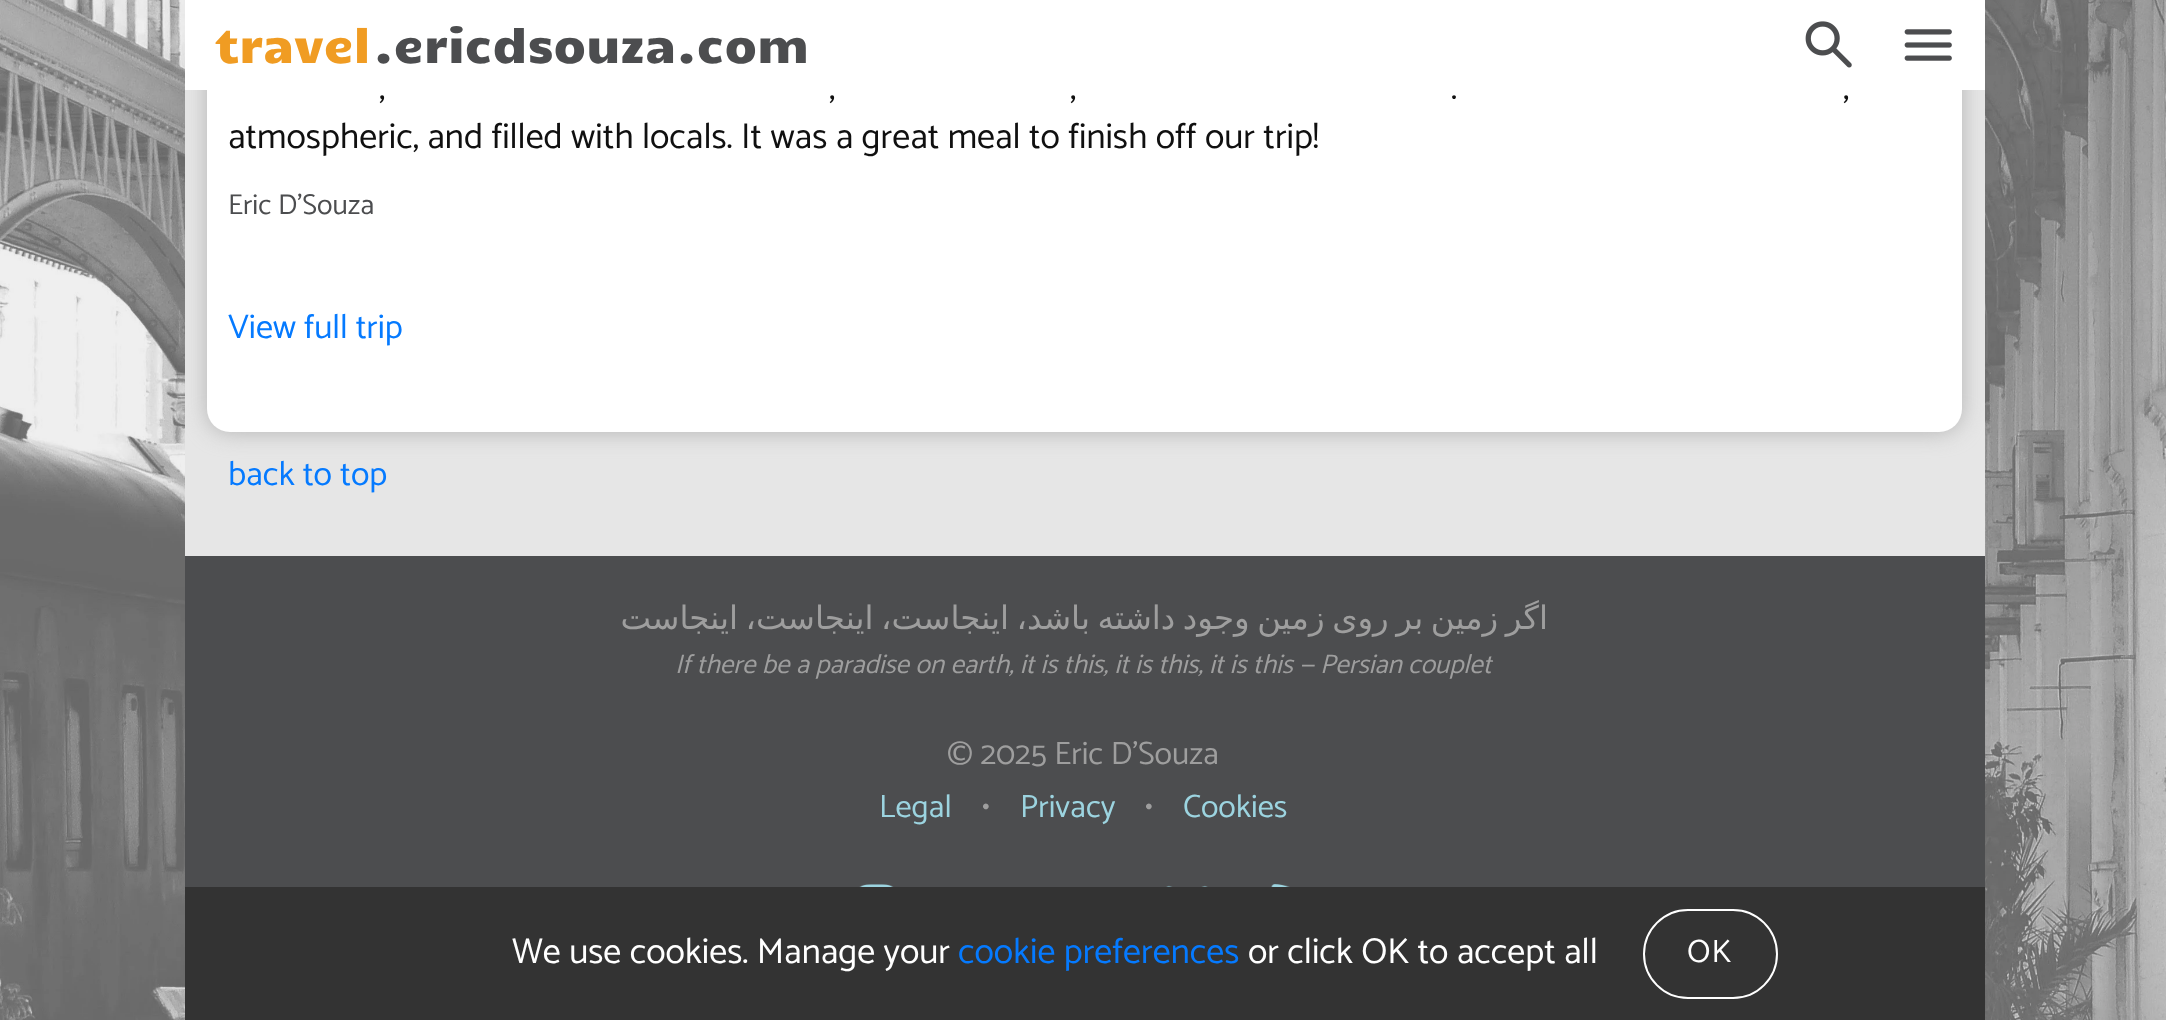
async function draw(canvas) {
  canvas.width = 2166;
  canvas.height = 1020;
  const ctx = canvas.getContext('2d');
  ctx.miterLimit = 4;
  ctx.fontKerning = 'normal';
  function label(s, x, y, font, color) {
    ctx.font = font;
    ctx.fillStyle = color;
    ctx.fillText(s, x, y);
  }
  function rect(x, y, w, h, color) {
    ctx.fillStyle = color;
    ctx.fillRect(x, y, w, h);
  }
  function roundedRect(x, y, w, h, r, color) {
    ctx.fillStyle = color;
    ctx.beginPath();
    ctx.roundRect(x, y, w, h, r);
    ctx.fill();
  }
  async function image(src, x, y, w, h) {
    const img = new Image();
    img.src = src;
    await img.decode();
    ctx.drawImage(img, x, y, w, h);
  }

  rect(0, 0, 2166, 1020, '#fff');
  await image('assets/img1.png', 0, 0, 2166, 1020);
  rect(185, 90, 1800, 466, '#e6e6e6');
  ctx.save();
  ctx.beginPath();
  ctx.rect(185, 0, 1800, 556);
  ctx.clip();
  ctx.fillStyle = '#b3b3b3';
  ctx.filter = 'blur(11px)';
  ctx.beginPath();
  ctx.roundRect(207, -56, 1755, 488, 23);
  ctx.fill();
  ctx.filter = 'none';
  ctx.restore();
  roundedRect(207, -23, 1755, 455, 23, '#fff');
  rect(185, 0, 1800, 90, '#fff');
  label('travel', 215, 63, '46.75px Candal', '#f09c23');
  label('.ericdsouza.com', 373, 63, '46.75px Candal', '#4c4d4f');
  await image('assets/img2.png', 1805, 21, 47, 47);
  await image('assets/img3.png', 1904, 29, 48, 32);
  label(',', 379, 99, '36px Catamaran', '#101010');
  label(',', 829, 99, '36px Catamaran', '#101010');
  label(',', 1070, 99, '36px Catamaran', '#101010');
  label('.', 1451, 99, '36px Catamaran', '#101010');
  label(',', 1843, 99, '36px Catamaran', '#101010');
  label('atmospheric, and filled with locals. It was a great meal to finish off our trip!', 228, 148, '36px Catamaran', '#101010');
  label('Eric D’Souza', 228, 214, '28.75px Catamaran', '#4c4d4f');
  label('View full trip', 228, 338, '34.25px Catamaran', '#057aff');
  label('back to top', 228, 485, '34.25px Catamaran', '#057aff');
  rect(185, 556, 1800, 331, '#4c4d4f');
  ctx.wordSpacing = '-2.75px';
  ctx.direction = 'rtl';
  label('اگر زمین بر روی زمین وجود داشته باشد، اینجاست، اینجاست، اینجاست', 1548, 629, '32.4px DejaVu Sans', '#9e9e9e');
  ctx.wordSpacing = '0px';
  ctx.direction = 'ltr';
  label('If there be a paradise on earth, it is this, it is this, it is this — Persian couplet', 675, 673, 'italic 27px Catamaran', '#9e9e9e');
  label('© 2025 Eric D\'Souza', 947, 764, '32.4px Catamaran', '#9e9e9e');
  label('Legal', 879, 817, '32.4px Catamaran', '#9cd4e0');
  label('•', 982, 817, '32.4px Catamaran', '#9e9e9e');
  label('Privacy', 1020, 817, '32.4px Catamaran', '#9cd4e0');
  label('•', 1145, 817, '32.4px Catamaran', '#9e9e9e');
  label('Cookies', 1183, 817, '32.4px Catamaran', '#9cd4e0');
  await image('assets/img4.png', 859, 884, 35, 3);
  await image('assets/img5.png', 1166, 885, 42, 2);
  await image('assets/img6.png', 1271, 884, 19, 3);
  rect(185, 887, 1800, 133, '#333');
  label('We use cookies. Manage your', 512, 963, '36px Catamaran', '#fff');
  label('cookie preferences', 958, 963, '36px Catamaran', '#057aff');
  label('or click OK to accept all', 1248, 963, '36px Catamaran', '#fff');
  ctx.beginPath();
  ctx.roundRect(1644, 910, 133, 88, 44);
  ctx.strokeStyle = '#fff';
  ctx.lineWidth = 2;
  ctx.stroke();
  ctx.letterSpacing = '1px';
  label('OK', 1687, 962, '32.4px Catamaran', '#fff');
}

draw(document.querySelector('canvas'));
